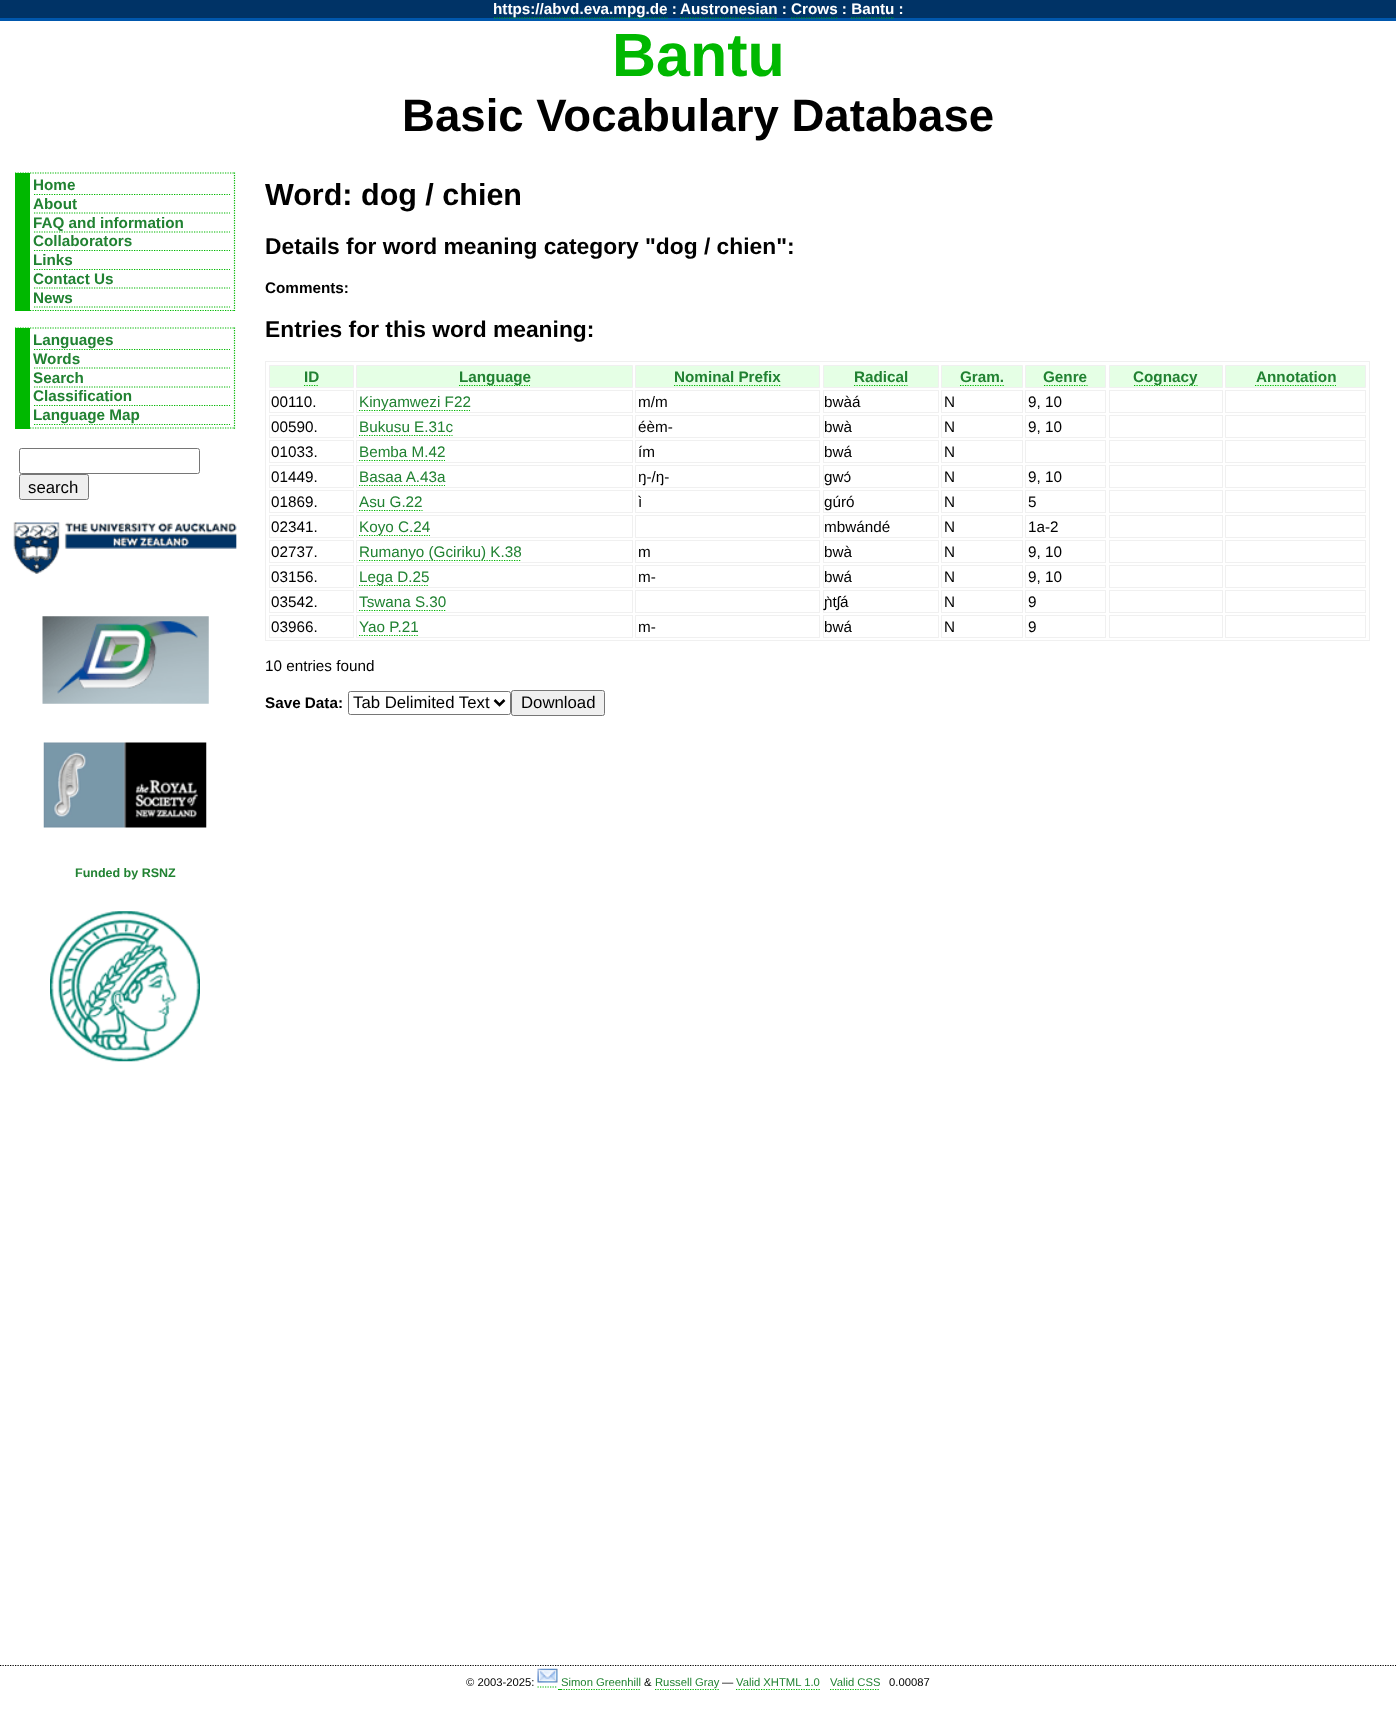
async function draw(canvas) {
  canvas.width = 1396;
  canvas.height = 1716;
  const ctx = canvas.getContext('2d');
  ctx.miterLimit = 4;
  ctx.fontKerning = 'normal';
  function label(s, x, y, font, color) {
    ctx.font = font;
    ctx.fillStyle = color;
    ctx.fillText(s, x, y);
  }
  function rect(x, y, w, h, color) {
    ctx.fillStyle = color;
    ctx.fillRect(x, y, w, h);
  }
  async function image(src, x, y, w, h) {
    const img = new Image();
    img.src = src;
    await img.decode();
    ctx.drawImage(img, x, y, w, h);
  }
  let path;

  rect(0, 0, 1396, 1716, '#fff');
  rect(0, 0, 1396, 18, '#036');
  rect(0, 18, 1396, 3, '#0057ad');
  path = new Path2D('M494 18H667.5');
  ctx.strokeStyle = '#00b800';
  ctx.lineWidth = 1.2;
  ctx.setLineDash([1.25, 1.25]);
  ctx.stroke(path);
  label('https://abvd.eva.mpg.de :', 493, 14, 'bold 15.25px Liberation Sans', '#fff');
  label('Austronesian : Crows : Bantu :', 680, 14, 'bold 15.25px Liberation Sans', '#fff');
  path = new Path2D('M680 18H777.5');
  ctx.stroke(path);
  path = new Path2D('M791 18H837.5');
  ctx.stroke(path);
  path = new Path2D('M851 18H894');
  ctx.stroke(path);
  label('Bantu', 612, 76, 'bold 61px Liberation Sans', '#00b800');
  label('Basic Vocabulary Database', 402, 131, 'bold 45.6px Liberation Sans', '#000');
  path = new Path2D('M15 173H235');
  ctx.stroke(path);
  path = new Path2D('M234.5 172.5V311');
  ctx.stroke(path);
  path = new Path2D('M15 310.5H235');
  ctx.stroke(path);
  rect(15, 173, 15, 138, '#00b800');
  path = new Path2D('M34 194.5H230');
  ctx.stroke(path);
  label('Home', 33, 190, 'bold 15.25px Liberation Sans', '#218232');
  path = new Path2D('M34 213H230');
  ctx.stroke(path);
  label('About', 33, 209, 'bold 15.25px Liberation Sans', '#218232');
  path = new Path2D('M34 232H230');
  ctx.stroke(path);
  label('FAQ and information', 33, 228, 'bold 15.25px Liberation Sans', '#218232');
  path = new Path2D('M34 250.5H230');
  ctx.stroke(path);
  label('Collaborators', 33, 246, 'bold 15.25px Liberation Sans', '#218232');
  path = new Path2D('M34 269.5H230');
  ctx.stroke(path);
  label('Links', 33, 265, 'bold 15.25px Liberation Sans', '#218232');
  path = new Path2D('M34 288H230');
  ctx.stroke(path);
  label('Contact Us', 33, 284, 'bold 15.25px Liberation Sans', '#218232');
  path = new Path2D('M34 307H230');
  ctx.stroke(path);
  label('News', 33, 303, 'bold 15.25px Liberation Sans', '#218232');
  path = new Path2D('M15 328H235');
  ctx.stroke(path);
  path = new Path2D('M234.5 327.5V429');
  ctx.stroke(path);
  path = new Path2D('M15 428H235');
  ctx.stroke(path);
  rect(15, 328, 15, 101, '#00b800');
  path = new Path2D('M34 349.5H230');
  ctx.stroke(path);
  label('Languages', 33, 345, 'bold 15.25px Liberation Sans', '#218232');
  path = new Path2D('M34 368H230');
  ctx.stroke(path);
  label('Words', 33, 364, 'bold 15.25px Liberation Sans', '#218232');
  path = new Path2D('M34 387H230');
  ctx.stroke(path);
  label('Search', 33, 383, 'bold 15.25px Liberation Sans', '#218232');
  path = new Path2D('M34 405.5H230');
  ctx.stroke(path);
  label('Classification', 33, 401, 'bold 15.25px Liberation Sans', '#218232');
  path = new Path2D('M34 424.5H230');
  ctx.stroke(path);
  label('Language Map', 33, 420, 'bold 15.25px Liberation Sans', '#218232');
  ctx.beginPath();
  ctx.roundRect(19.5, 448.5, 180, 25, 2);
  ctx.strokeStyle = '#767676';
  ctx.lineWidth = 1;
  ctx.setLineDash([]);
  ctx.stroke();
  ctx.fillStyle = '#efefef';
  ctx.beginPath();
  ctx.roundRect(19.5, 474.5, 69, 25, 2);
  ctx.fill();
  ctx.stroke();
  label('search', 28, 493, '16.75px Liberation Sans', '#000');
  await image('assets/img1.png', 13, 522, 224, 52);
  await image('assets/img2.png', 42, 616, 167, 88);
  await image('assets/img3.png', 43, 742, 164, 86);
  label('Funded by RSNZ', 75, 877, 'bold 12.5px Liberation Sans', '#218232');
  await image('assets/img4.png', 50, 911, 150, 151);
  label('Word: dog / chien', 265, 205, 'bold 30.5px Liberation Sans', '#000');
  label('Details for word meaning category "dog / chien":', 265, 254, 'bold 22.8px Liberation Sans', '#000');
  label('Comments:', 265, 293, 'bold 15.25px Liberation Sans', '#000');
  label('Entries for this word meaning:', 265, 337, 'bold 22.8px Liberation Sans', '#000');
  ctx.strokeStyle = '#f0f0f0';
  ctx.strokeRect(265.5, 361.5, 1104, 279);
  ctx.fillStyle = '#e5ffe5';
  ctx.beginPath();
  ctx.rect(269.5, 365.5, 84, 22);
  ctx.fill();
  ctx.stroke();
  label('ID', 304, 382, 'bold 15.25px Liberation Sans', '#218232');
  path = new Path2D('M304 385.5H319');
  ctx.strokeStyle = '#00b800';
  ctx.lineWidth = 1.2;
  ctx.setLineDash([1.25, 1.25]);
  ctx.stroke(path);
  ctx.fillStyle = '#e5ffe5';
  ctx.beginPath();
  ctx.rect(356.5, 365.5, 276, 22);
  ctx.fill();
  ctx.strokeStyle = '#f0f0f0';
  ctx.lineWidth = 1;
  ctx.setLineDash([]);
  ctx.stroke();
  path = new Path2D('M459 385.5H530');
  ctx.strokeStyle = '#00b800';
  ctx.lineWidth = 1.2;
  ctx.setLineDash([1.25, 1.25]);
  ctx.stroke(path);
  label('Language', 459, 382, 'bold 15.25px Liberation Sans', '#218232');
  ctx.fillStyle = '#e5ffe5';
  ctx.beginPath();
  ctx.rect(635.5, 365.5, 184, 22);
  ctx.fill();
  ctx.strokeStyle = '#f0f0f0';
  ctx.lineWidth = 1;
  ctx.setLineDash([]);
  ctx.stroke();
  label('Nominal Prefix', 674, 382, 'bold 15.25px Liberation Sans', '#218232');
  path = new Path2D('M674 385.5H781');
  ctx.strokeStyle = '#00b800';
  ctx.lineWidth = 1.2;
  ctx.setLineDash([1.25, 1.25]);
  ctx.stroke(path);
  ctx.fillStyle = '#e5ffe5';
  ctx.beginPath();
  ctx.rect(823.5, 365.5, 115, 22);
  ctx.fill();
  ctx.strokeStyle = '#f0f0f0';
  ctx.lineWidth = 1;
  ctx.setLineDash([]);
  ctx.stroke();
  label('Radical', 854, 382, 'bold 15.25px Liberation Sans', '#218232');
  path = new Path2D('M854 385.5H907.5');
  ctx.strokeStyle = '#00b800';
  ctx.lineWidth = 1.2;
  ctx.setLineDash([1.25, 1.25]);
  ctx.stroke(path);
  ctx.fillStyle = '#e5ffe5';
  ctx.beginPath();
  ctx.rect(941.5, 365.5, 81, 22);
  ctx.fill();
  ctx.strokeStyle = '#f0f0f0';
  ctx.lineWidth = 1;
  ctx.setLineDash([]);
  ctx.stroke();
  label('Gram.', 960, 382, 'bold 15.25px Liberation Sans', '#218232');
  path = new Path2D('M960 385.5H1004');
  ctx.strokeStyle = '#00b800';
  ctx.lineWidth = 1.2;
  ctx.setLineDash([1.25, 1.25]);
  ctx.stroke(path);
  ctx.fillStyle = '#e5ffe5';
  ctx.beginPath();
  ctx.rect(1025.5, 365.5, 80, 22);
  ctx.fill();
  ctx.strokeStyle = '#f0f0f0';
  ctx.lineWidth = 1;
  ctx.setLineDash([]);
  ctx.stroke();
  label('Genre', 1043, 382, 'bold 15.25px Liberation Sans', '#218232');
  path = new Path2D('M1044 385.5H1087.5');
  ctx.strokeStyle = '#00b800';
  ctx.lineWidth = 1.2;
  ctx.setLineDash([1.25, 1.25]);
  ctx.stroke(path);
  ctx.fillStyle = '#e5ffe5';
  ctx.beginPath();
  ctx.rect(1109.5, 365.5, 113, 22);
  ctx.fill();
  ctx.strokeStyle = '#f0f0f0';
  ctx.lineWidth = 1;
  ctx.setLineDash([]);
  ctx.stroke();
  path = new Path2D('M1134 385.5H1197.5');
  ctx.strokeStyle = '#00b800';
  ctx.lineWidth = 1.2;
  ctx.setLineDash([1.25, 1.25]);
  ctx.stroke(path);
  label('Cognacy', 1133, 382, 'bold 15.25px Liberation Sans', '#218232');
  ctx.fillStyle = '#e5ffe5';
  ctx.beginPath();
  ctx.rect(1225.5, 365.5, 140, 22);
  ctx.fill();
  ctx.strokeStyle = '#f0f0f0';
  ctx.lineWidth = 1;
  ctx.setLineDash([]);
  ctx.stroke();
  label('Annotation', 1256, 382, 'bold 15.25px Liberation Sans', '#218232');
  path = new Path2D('M1255 385.5H1336');
  ctx.strokeStyle = '#00b800';
  ctx.lineWidth = 1.2;
  ctx.setLineDash([1.25, 1.25]);
  ctx.stroke(path);
  ctx.strokeStyle = '#f0f0f0';
  ctx.lineWidth = 1;
  ctx.setLineDash([]);
  ctx.strokeRect(269.5, 390.5, 84, 22);
  label('00110.', 271, 407, '15.25px Liberation Sans', '#000');
  ctx.strokeRect(356.5, 390.5, 276, 22);
  path = new Path2D('M359 410.5H470');
  ctx.strokeStyle = '#00b800';
  ctx.lineWidth = 1.2;
  ctx.setLineDash([1.25, 1.25]);
  ctx.stroke(path);
  label('Kinyamwezi F22', 359, 407, '15.25px Liberation Sans', '#218232');
  ctx.strokeStyle = '#f0f0f0';
  ctx.lineWidth = 1;
  ctx.setLineDash([]);
  ctx.strokeRect(635.5, 390.5, 184, 22);
  label('m/m', 638, 407, '15.25px Liberation Sans', '#000');
  ctx.strokeRect(823.5, 390.5, 115, 22);
  label('bwàá', 824, 407, '15.25px Liberation Sans', '#000');
  ctx.strokeRect(941.5, 390.5, 81, 22);
  label('N', 944, 407, '15.25px Liberation Sans', '#000');
  ctx.strokeRect(1025.5, 390.5, 80, 22);
  label('9, 10', 1028, 407, '15.25px Liberation Sans', '#000');
  ctx.strokeRect(1109.5, 390.5, 113, 22);
  ctx.strokeRect(1225.5, 390.5, 140, 22);
  ctx.strokeRect(269.5, 415.5, 84, 22);
  label('00590.', 271, 432, '15.25px Liberation Sans', '#000');
  ctx.strokeRect(356.5, 415.5, 276, 22);
  label('Bukusu E.31c', 359, 432, '15.25px Liberation Sans', '#218232');
  path = new Path2D('M359 435.5H452.5');
  ctx.strokeStyle = '#00b800';
  ctx.lineWidth = 1.2;
  ctx.setLineDash([1.25, 1.25]);
  ctx.stroke(path);
  ctx.strokeStyle = '#f0f0f0';
  ctx.lineWidth = 1;
  ctx.setLineDash([]);
  ctx.strokeRect(635.5, 415.5, 184, 22);
  label('éèm-', 638, 432, '15.25px Liberation Sans', '#000');
  ctx.strokeRect(823.5, 415.5, 115, 22);
  label('bwà', 824, 432, '15.25px Liberation Sans', '#000');
  ctx.strokeRect(941.5, 415.5, 81, 22);
  label('N', 944, 432, '15.25px Liberation Sans', '#000');
  ctx.strokeRect(1025.5, 415.5, 80, 22);
  label('9, 10', 1028, 432, '15.25px Liberation Sans', '#000');
  ctx.strokeRect(1109.5, 415.5, 113, 22);
  ctx.strokeRect(1225.5, 415.5, 140, 22);
  ctx.strokeRect(269.5, 440.5, 84, 22);
  label('01033.', 271, 457, '15.25px Liberation Sans', '#000');
  ctx.strokeRect(356.5, 440.5, 276, 22);
  label('Bemba M.42', 359, 457, '15.25px Liberation Sans', '#218232');
  path = new Path2D('M359 460.5H445');
  ctx.strokeStyle = '#00b800';
  ctx.lineWidth = 1.2;
  ctx.setLineDash([1.25, 1.25]);
  ctx.stroke(path);
  ctx.strokeStyle = '#f0f0f0';
  ctx.lineWidth = 1;
  ctx.setLineDash([]);
  ctx.strokeRect(635.5, 440.5, 184, 22);
  label('ím', 638, 457, '15.25px Liberation Sans', '#000');
  ctx.strokeRect(823.5, 440.5, 115, 22);
  label('bwá', 824, 457, '15.25px Liberation Sans', '#000');
  ctx.strokeRect(941.5, 440.5, 81, 22);
  label('N', 944, 457, '15.25px Liberation Sans', '#000');
  ctx.strokeRect(1025.5, 440.5, 80, 22);
  ctx.strokeRect(1109.5, 440.5, 113, 22);
  ctx.strokeRect(1225.5, 440.5, 140, 22);
  ctx.strokeRect(269.5, 465.5, 84, 22);
  label('01449.', 271, 482, '15.25px Liberation Sans', '#000');
  ctx.strokeRect(356.5, 465.5, 276, 22);
  label('Basaa A.43a', 359, 482, '15.25px Liberation Sans', '#218232');
  path = new Path2D('M359 485.5H445');
  ctx.strokeStyle = '#00b800';
  ctx.lineWidth = 1.2;
  ctx.setLineDash([1.25, 1.25]);
  ctx.stroke(path);
  ctx.strokeStyle = '#f0f0f0';
  ctx.lineWidth = 1;
  ctx.setLineDash([]);
  ctx.strokeRect(635.5, 465.5, 184, 22);
  label('ŋ-/ŋ-', 638, 482, '15.25px Liberation Sans', '#000');
  ctx.strokeRect(823.5, 465.5, 115, 22);
  label('gwɔ́', 824, 482, '15.25px Liberation Sans', '#000');
  ctx.strokeRect(941.5, 465.5, 81, 22);
  label('N', 944, 482, '15.25px Liberation Sans', '#000');
  ctx.strokeRect(1025.5, 465.5, 80, 22);
  label('9, 10', 1028, 482, '15.25px Liberation Sans', '#000');
  ctx.strokeRect(1109.5, 465.5, 113, 22);
  ctx.strokeRect(1225.5, 465.5, 140, 22);
  ctx.strokeRect(269.5, 490.5, 84, 22);
  label('01869.', 271, 507, '15.25px Liberation Sans', '#000');
  ctx.strokeRect(356.5, 490.5, 276, 22);
  label('Asu G.22', 359, 507, '15.25px Liberation Sans', '#218232');
  path = new Path2D('M359 510.5H422.5');
  ctx.strokeStyle = '#00b800';
  ctx.lineWidth = 1.2;
  ctx.setLineDash([1.25, 1.25]);
  ctx.stroke(path);
  ctx.strokeStyle = '#f0f0f0';
  ctx.lineWidth = 1;
  ctx.setLineDash([]);
  ctx.strokeRect(635.5, 490.5, 184, 22);
  label('ì', 638, 507, '15.25px Liberation Sans', '#000');
  ctx.strokeRect(823.5, 490.5, 115, 22);
  label('gúró', 824, 507, '15.25px Liberation Sans', '#000');
  ctx.strokeRect(941.5, 490.5, 81, 22);
  label('N', 944, 507, '15.25px Liberation Sans', '#000');
  ctx.strokeRect(1025.5, 490.5, 80, 22);
  label('5', 1028, 507, '15.25px Liberation Sans', '#000');
  ctx.strokeRect(1109.5, 490.5, 113, 22);
  ctx.strokeRect(1225.5, 490.5, 140, 22);
  ctx.strokeRect(269.5, 515.5, 84, 22);
  label('02341.', 271, 532, '15.25px Liberation Sans', '#000');
  ctx.strokeRect(356.5, 515.5, 276, 22);
  path = new Path2D('M359 535.5H430');
  ctx.strokeStyle = '#00b800';
  ctx.lineWidth = 1.2;
  ctx.setLineDash([1.25, 1.25]);
  ctx.stroke(path);
  label('Koyo C.24', 359, 532, '15.25px Liberation Sans', '#218232');
  ctx.strokeStyle = '#f0f0f0';
  ctx.lineWidth = 1;
  ctx.setLineDash([]);
  ctx.strokeRect(635.5, 515.5, 184, 22);
  ctx.strokeRect(823.5, 515.5, 115, 22);
  label('mbwándé', 824, 532, '15.25px Liberation Sans', '#000');
  ctx.strokeRect(941.5, 515.5, 81, 22);
  label('N', 944, 532, '15.25px Liberation Sans', '#000');
  ctx.strokeRect(1025.5, 515.5, 80, 22);
  label('1a-2', 1028, 532, '15.25px Liberation Sans', '#000');
  ctx.strokeRect(1109.5, 515.5, 113, 22);
  ctx.strokeRect(1225.5, 515.5, 140, 22);
  ctx.strokeRect(269.5, 540.5, 84, 22);
  label('02737.', 271, 557, '15.25px Liberation Sans', '#000');
  ctx.strokeRect(356.5, 540.5, 276, 22);
  path = new Path2D('M359 560.5H521');
  ctx.strokeStyle = '#00b800';
  ctx.lineWidth = 1.2;
  ctx.setLineDash([1.25, 1.25]);
  ctx.stroke(path);
  label('Rumanyo (Gciriku) K.38', 359, 557, '15.25px Liberation Sans', '#218232');
  ctx.strokeStyle = '#f0f0f0';
  ctx.lineWidth = 1;
  ctx.setLineDash([]);
  ctx.strokeRect(635.5, 540.5, 184, 22);
  label('m', 638, 557, '15.25px Liberation Sans', '#000');
  ctx.strokeRect(823.5, 540.5, 115, 22);
  label('bwà', 824, 557, '15.25px Liberation Sans', '#000');
  ctx.strokeRect(941.5, 540.5, 81, 22);
  label('N', 944, 557, '15.25px Liberation Sans', '#000');
  ctx.strokeRect(1025.5, 540.5, 80, 22);
  label('9, 10', 1028, 557, '15.25px Liberation Sans', '#000');
  ctx.strokeRect(1109.5, 540.5, 113, 22);
  ctx.strokeRect(1225.5, 540.5, 140, 22);
  ctx.strokeRect(269.5, 565.5, 84, 22);
  label('03156.', 271, 582, '15.25px Liberation Sans', '#000');
  ctx.strokeRect(356.5, 565.5, 276, 22);
  path = new Path2D('M359 585.5H429');
  ctx.strokeStyle = '#00b800';
  ctx.lineWidth = 1.2;
  ctx.setLineDash([1.25, 1.25]);
  ctx.stroke(path);
  label('Lega D.25', 359, 582, '15.25px Liberation Sans', '#218232');
  ctx.strokeStyle = '#f0f0f0';
  ctx.lineWidth = 1;
  ctx.setLineDash([]);
  ctx.strokeRect(635.5, 565.5, 184, 22);
  label('m-', 638, 582, '15.25px Liberation Sans', '#000');
  ctx.strokeRect(823.5, 565.5, 115, 22);
  label('bwá', 824, 582, '15.25px Liberation Sans', '#000');
  ctx.strokeRect(941.5, 565.5, 81, 22);
  label('N', 944, 582, '15.25px Liberation Sans', '#000');
  ctx.strokeRect(1025.5, 565.5, 80, 22);
  label('9, 10', 1028, 582, '15.25px Liberation Sans', '#000');
  ctx.strokeRect(1109.5, 565.5, 113, 22);
  ctx.strokeRect(1225.5, 565.5, 140, 22);
  ctx.strokeRect(269.5, 590.5, 84, 22);
  label('03542.', 271, 607, '15.25px Liberation Sans', '#000');
  ctx.strokeRect(356.5, 590.5, 276, 22);
  label('Tswana S.30', 359, 607, '15.25px Liberation Sans', '#218232');
  path = new Path2D('M359 610.5H446');
  ctx.strokeStyle = '#00b800';
  ctx.lineWidth = 1.2;
  ctx.setLineDash([1.25, 1.25]);
  ctx.stroke(path);
  ctx.strokeStyle = '#f0f0f0';
  ctx.lineWidth = 1;
  ctx.setLineDash([]);
  ctx.strokeRect(635.5, 590.5, 184, 22);
  ctx.strokeRect(823.5, 590.5, 115, 22);
  label('ɲ̀tʃá', 824, 607, '15.25px Liberation Sans', '#000');
  ctx.strokeRect(941.5, 590.5, 81, 22);
  label('N', 944, 607, '15.25px Liberation Sans', '#000');
  ctx.strokeRect(1025.5, 590.5, 80, 22);
  label('9', 1028, 607, '15.25px Liberation Sans', '#000');
  ctx.strokeRect(1109.5, 590.5, 113, 22);
  ctx.strokeRect(1225.5, 590.5, 140, 22);
  ctx.strokeRect(269.5, 615.5, 84, 22);
  label('03966.', 271, 632, '15.25px Liberation Sans', '#000');
  ctx.strokeRect(356.5, 615.5, 276, 22);
  label('Yao P.21', 359, 632, '15.25px Liberation Sans', '#218232');
  path = new Path2D('M359 635.5H419');
  ctx.strokeStyle = '#00b800';
  ctx.lineWidth = 1.2;
  ctx.setLineDash([1.25, 1.25]);
  ctx.stroke(path);
  ctx.strokeStyle = '#f0f0f0';
  ctx.lineWidth = 1;
  ctx.setLineDash([]);
  ctx.strokeRect(635.5, 615.5, 184, 22);
  label('m-', 638, 632, '15.25px Liberation Sans', '#000');
  ctx.strokeRect(823.5, 615.5, 115, 22);
  label('bwá', 824, 632, '15.25px Liberation Sans', '#000');
  ctx.strokeRect(941.5, 615.5, 81, 22);
  label('N', 944, 632, '15.25px Liberation Sans', '#000');
  ctx.strokeRect(1025.5, 615.5, 80, 22);
  label('9', 1028, 632, '15.25px Liberation Sans', '#000');
  ctx.strokeRect(1109.5, 615.5, 113, 22);
  ctx.strokeRect(1225.5, 615.5, 140, 22);
  label('10 entries found', 265, 671, '15.25px Liberation Sans', '#000');
  label('Save Data:', 265, 708, 'bold 15.25px Liberation Sans', '#000');
  ctx.beginPath();
  ctx.roundRect(348.5, 691.5, 162, 23, 2);
  ctx.strokeStyle = '#767676';
  ctx.stroke();
  path = new Path2D('M494.5 700L499.5 705L504.5 700');
  ctx.strokeStyle = '#000';
  ctx.lineWidth = 2.5;
  ctx.stroke(path);
  label('Tab Delimited Text', 353, 708, '16.75px Liberation Sans', '#000');
  ctx.fillStyle = '#efefef';
  ctx.beginPath();
  ctx.roundRect(511.5, 690.5, 93, 25, 2);
  ctx.fill();
  ctx.strokeStyle = '#767676';
  ctx.lineWidth = 1;
  ctx.stroke();
  label('Download', 521, 708, '16.75px Liberation Sans', '#000');
  path = new Path2D('M0 1665.5H1396');
  ctx.strokeStyle = '#000';
  ctx.lineWidth = 1.2;
  ctx.setLineDash([1.25, 1.25]);
  ctx.stroke(path);
  label('© 2003-2025:', 466, 1686, '11.25px Liberation Sans', '#000');
  await image('assets/img5.png', 537, 1668, 21, 15);
  label('Simon Greenhill', 561, 1686, '11.25px Liberation Sans', '#218232');
  rect(558, 1689, 4, 1, '#00b800');
  path = new Path2D('M561 1689.5H641');
  ctx.strokeStyle = '#00b800';
  ctx.stroke(path);
  label('&', 644, 1686, '11.25px Liberation Sans', '#000');
  path = new Path2D('M655 1689.5H719');
  ctx.stroke(path);
  label('Russell Gray', 655, 1686, '11.25px Liberation Sans', '#218232');
  label('—', 722, 1686, '11.25px Liberation Sans', '#000');
  label('Valid XHTML 1.0', 736, 1686, '11.25px Liberation Sans', '#218232');
  path = new Path2D('M736 1689.5H820');
  ctx.stroke(path);
  label('Valid CSS', 830, 1686, '11.25px Liberation Sans', '#218232');
  path = new Path2D('M830 1689.5H880');
  ctx.stroke(path);
  label('0.00087', 889, 1686, '11.25px Liberation Sans', '#000');
  path = new Path2D('M537.5 1687H557.5');
  ctx.stroke(path);
}

draw(document.querySelector('canvas'));
